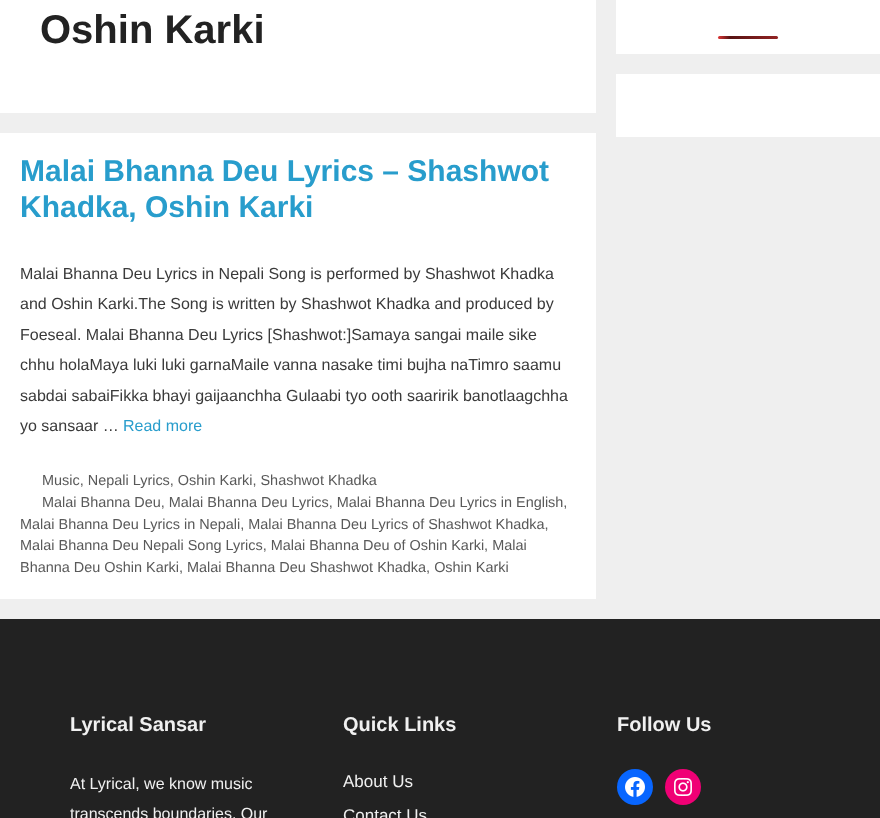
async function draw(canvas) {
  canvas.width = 880;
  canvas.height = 818;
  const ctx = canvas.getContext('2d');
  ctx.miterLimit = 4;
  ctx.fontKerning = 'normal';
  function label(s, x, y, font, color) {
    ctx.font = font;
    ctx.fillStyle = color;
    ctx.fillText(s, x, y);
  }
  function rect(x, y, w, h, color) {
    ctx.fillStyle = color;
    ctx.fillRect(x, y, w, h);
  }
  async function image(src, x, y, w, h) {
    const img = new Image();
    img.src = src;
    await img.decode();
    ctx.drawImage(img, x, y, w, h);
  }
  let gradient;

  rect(0, 0, 880, 818, '#efefef');
  rect(0, 0, 596, 113, '#fff');
  label('Oshin Karki', 40, 43, 'bold 40px Liberation Sans', '#222');
  rect(0, 133, 596, 466, '#fff');
  label('Malai Bhanna Deu Lyrics – Shashwot', 20, 181, 'bold 30px Liberation Sans', '#289dcc');
  label('Khadka, Oshin Karki', 20, 217, 'bold 30px Liberation Sans', '#289dcc');
  label('Malai Bhanna Deu Lyrics in Nepali Song is performed by Shashwot Khadka', 20, 279, '16px Liberation Sans', '#3a3a3a');
  label('and Oshin Karki.The Song is written by Shashwot Khadka and produced by', 20, 309, '16px Liberation Sans', '#3a3a3a');
  label('Foeseal. Malai Bhanna Deu Lyrics [Shashwot:]Samaya sangai maile sike', 20, 340, '16px Liberation Sans', '#3a3a3a');
  label('chhu holaMaya luki luki garnaMaile vanna nasake timi bujha naTimro saamu', 20, 370, '16px Liberation Sans', '#3a3a3a');
  label('sabdai sabaiFikka bhayi gaijaanchha Gulaabi tyo ooth saaririk banotlaagchha', 20, 401, '16px Liberation Sans', '#3a3a3a');
  label('yo sansaar …', 20, 431, '16px Liberation Sans', '#3a3a3a');
  label('Read more', 123, 431, '16px Liberation Sans', '#289dcc');
  label('Music, Nepali Lyrics, Oshin Karki, Shashwot Khadka', 42, 485, '14.45px Liberation Sans', '#595959');
  label('Malai Bhanna Deu, Malai Bhanna Deu Lyrics, Malai Bhanna Deu Lyrics in English,', 42, 507, '14.45px Liberation Sans', '#595959');
  label('Malai Bhanna Deu Lyrics in Nepali, Malai Bhanna Deu Lyrics of Shashwot Khadka,', 20, 529, '14.45px Liberation Sans', '#595959');
  label('Malai Bhanna Deu Nepali Song Lyrics, Malai Bhanna Deu of Oshin Karki, Malai', 20, 550, '14.45px Liberation Sans', '#595959');
  label('Bhanna Deu Oshin Karki, Malai Bhanna Deu Shashwot Khadka, Oshin Karki', 20, 572, '14.45px Liberation Sans', '#595959');
  rect(616, 0, 264, 54, '#fff');
  gradient = ctx.createLinearGradient(718, 38, 838, 37);
  gradient.addColorStop(0, '#dd3737');
  gradient.addColorStop(0.1, '#571313');
  gradient.addColorStop(1, '#dd3737');
  ctx.fillStyle = gradient;
  ctx.beginPath();
  ctx.roundRect(718, 36, 60, 3, 1.5);
  ctx.fill();
  rect(616, 74, 264, 63, '#fff');
  rect(0, 619, 880, 199, '#222');
  label('Lyrical Sansar', 70, 731, 'bold 20px Liberation Sans', '#f0f0f0');
  label('At Lyrical, we know music', 70, 789, '16px Liberation Sans', '#f0f0f0');
  label('transcends boundaries. Our', 70, 819, '16px Liberation Sans', '#f0f0f0');
  label('Quick Links', 343, 731, 'bold 20px Liberation Sans', '#f0f0f0');
  label('About Us', 343, 787, '17px Liberation Sans', '#f0f0f0');
  label('Contact Us', 343, 821, '17px Liberation Sans', '#f0f0f0');
  label('Follow Us', 617, 731, 'bold 20px Liberation Sans', '#f0f0f0');
  ctx.fillStyle = '#0866ff';
  ctx.beginPath();
  ctx.arc(635, 787, 18, 0, 2 * Math.PI);
  ctx.fill();
  await image('assets/img1.png', 625, 777, 20, 20);
  ctx.fillStyle = '#f00075';
  ctx.beginPath();
  ctx.arc(683, 787, 18, 0, 2 * Math.PI);
  ctx.fill();
  await image('assets/img2.png', 674, 778, 18, 18);
}

draw(document.querySelector('canvas'));
